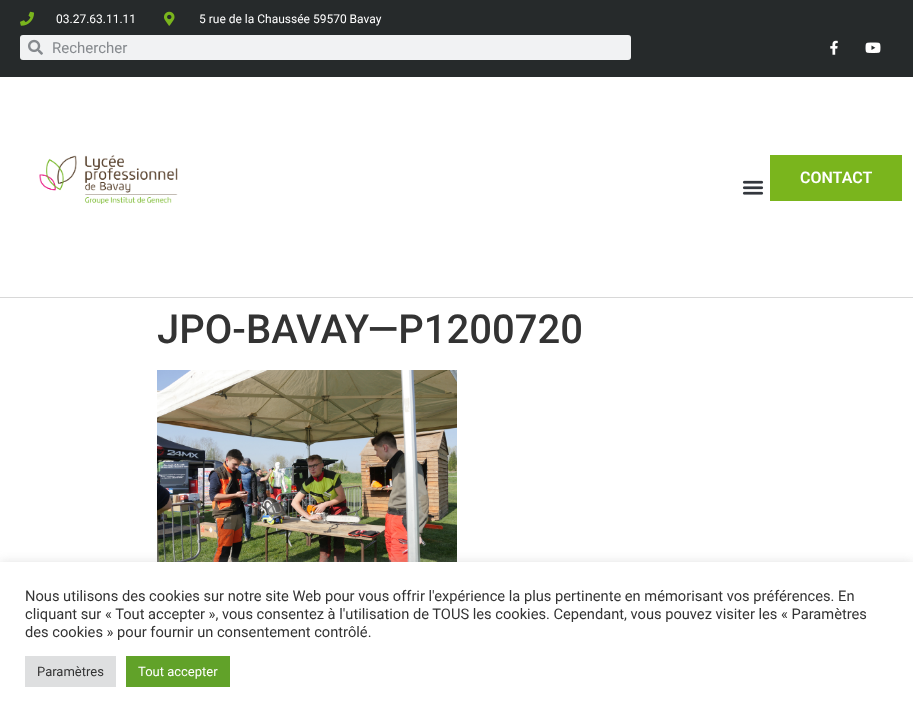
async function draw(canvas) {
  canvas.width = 913;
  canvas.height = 717;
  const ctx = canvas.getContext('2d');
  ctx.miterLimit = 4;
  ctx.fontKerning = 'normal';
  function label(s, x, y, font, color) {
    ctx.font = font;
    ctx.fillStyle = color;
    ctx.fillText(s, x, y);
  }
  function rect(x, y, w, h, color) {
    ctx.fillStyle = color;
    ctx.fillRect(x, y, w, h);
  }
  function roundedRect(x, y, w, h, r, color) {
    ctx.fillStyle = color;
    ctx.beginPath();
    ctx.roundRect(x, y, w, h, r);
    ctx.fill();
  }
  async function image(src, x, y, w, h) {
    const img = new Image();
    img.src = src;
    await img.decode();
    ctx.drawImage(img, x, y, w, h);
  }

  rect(0, 0, 913, 717, '#fff');
  rect(0, 0, 913, 77, '#262a2b');
  await image('assets/img1.png', 20, 11, 14, 15);
  label('03.27.63.11.11', 56, 23, '12px Roboto', '#fff');
  await image('assets/img2.png', 164, 11, 11, 15);
  label('5 rue de la Chaussée 59570 Bavay', 199, 23, '12px Roboto', '#fff');
  roundedRect(20, 35, 611, 25, 3, '#f1f2f3');
  await image('assets/img3.png', 28, 39, 15, 16);
  label('Rechercher', 52, 53, '15px Roboto', '#868a8e');
  await image('assets/img4.png', 830, 40, 8, 15);
  await image('assets/img5.png', 865, 42, 16, 11);
  rect(0, 297, 913, 1, '#d8d8d8');
  await image('assets/img6.png', 39, 155, 139, 49);
  rect(770, 155, 132, 46, '#7ab51d');
  label('CONTACT', 800, 183, '600 16px Roboto', '#fff');
  await image('assets/img7.png', 742, 180, 22, 15);
  label('JPO-BAVAY—P1200720', 157, 343, '500 40px Roboto', '#333');
  await image('assets/img8.png', 157, 370, 300, 192);
  ctx.fillStyle = '#acabab4d';
  ctx.filter = 'blur(5px)';
  ctx.beginPath();
  ctx.rect(0, 561, 913, 155);
  ctx.fill();
  ctx.filter = 'none';
  rect(0, 562, 913, 155, '#fff');
  label('Nous utilisons des cookies sur notre site Web pour vous offrir l\'expérience la plus pertinente en mémorisant vos préférences. En', 25, 601, '14.67px Roboto', '#333');
  label('cliquant sur « Tout accepter », vous consentez à l\'utilisation de TOUS les cookies. Cependant, vous pouvez visiter les « Paramètres', 25, 619, '14.67px Roboto', '#333');
  label('des cookies » pour fournir un consentement contrôlé.', 25, 637, '14.67px Roboto', '#333');
  rect(25, 656, 91, 31, '#dedfe0');
  label('Paramètres', 37, 676, '13px Roboto', '#333');
  rect(126, 656, 104, 31, '#61a229');
  label('Tout accepter', 138, 676, '13px Roboto', '#fff');
}

draw(document.querySelector('canvas'));
